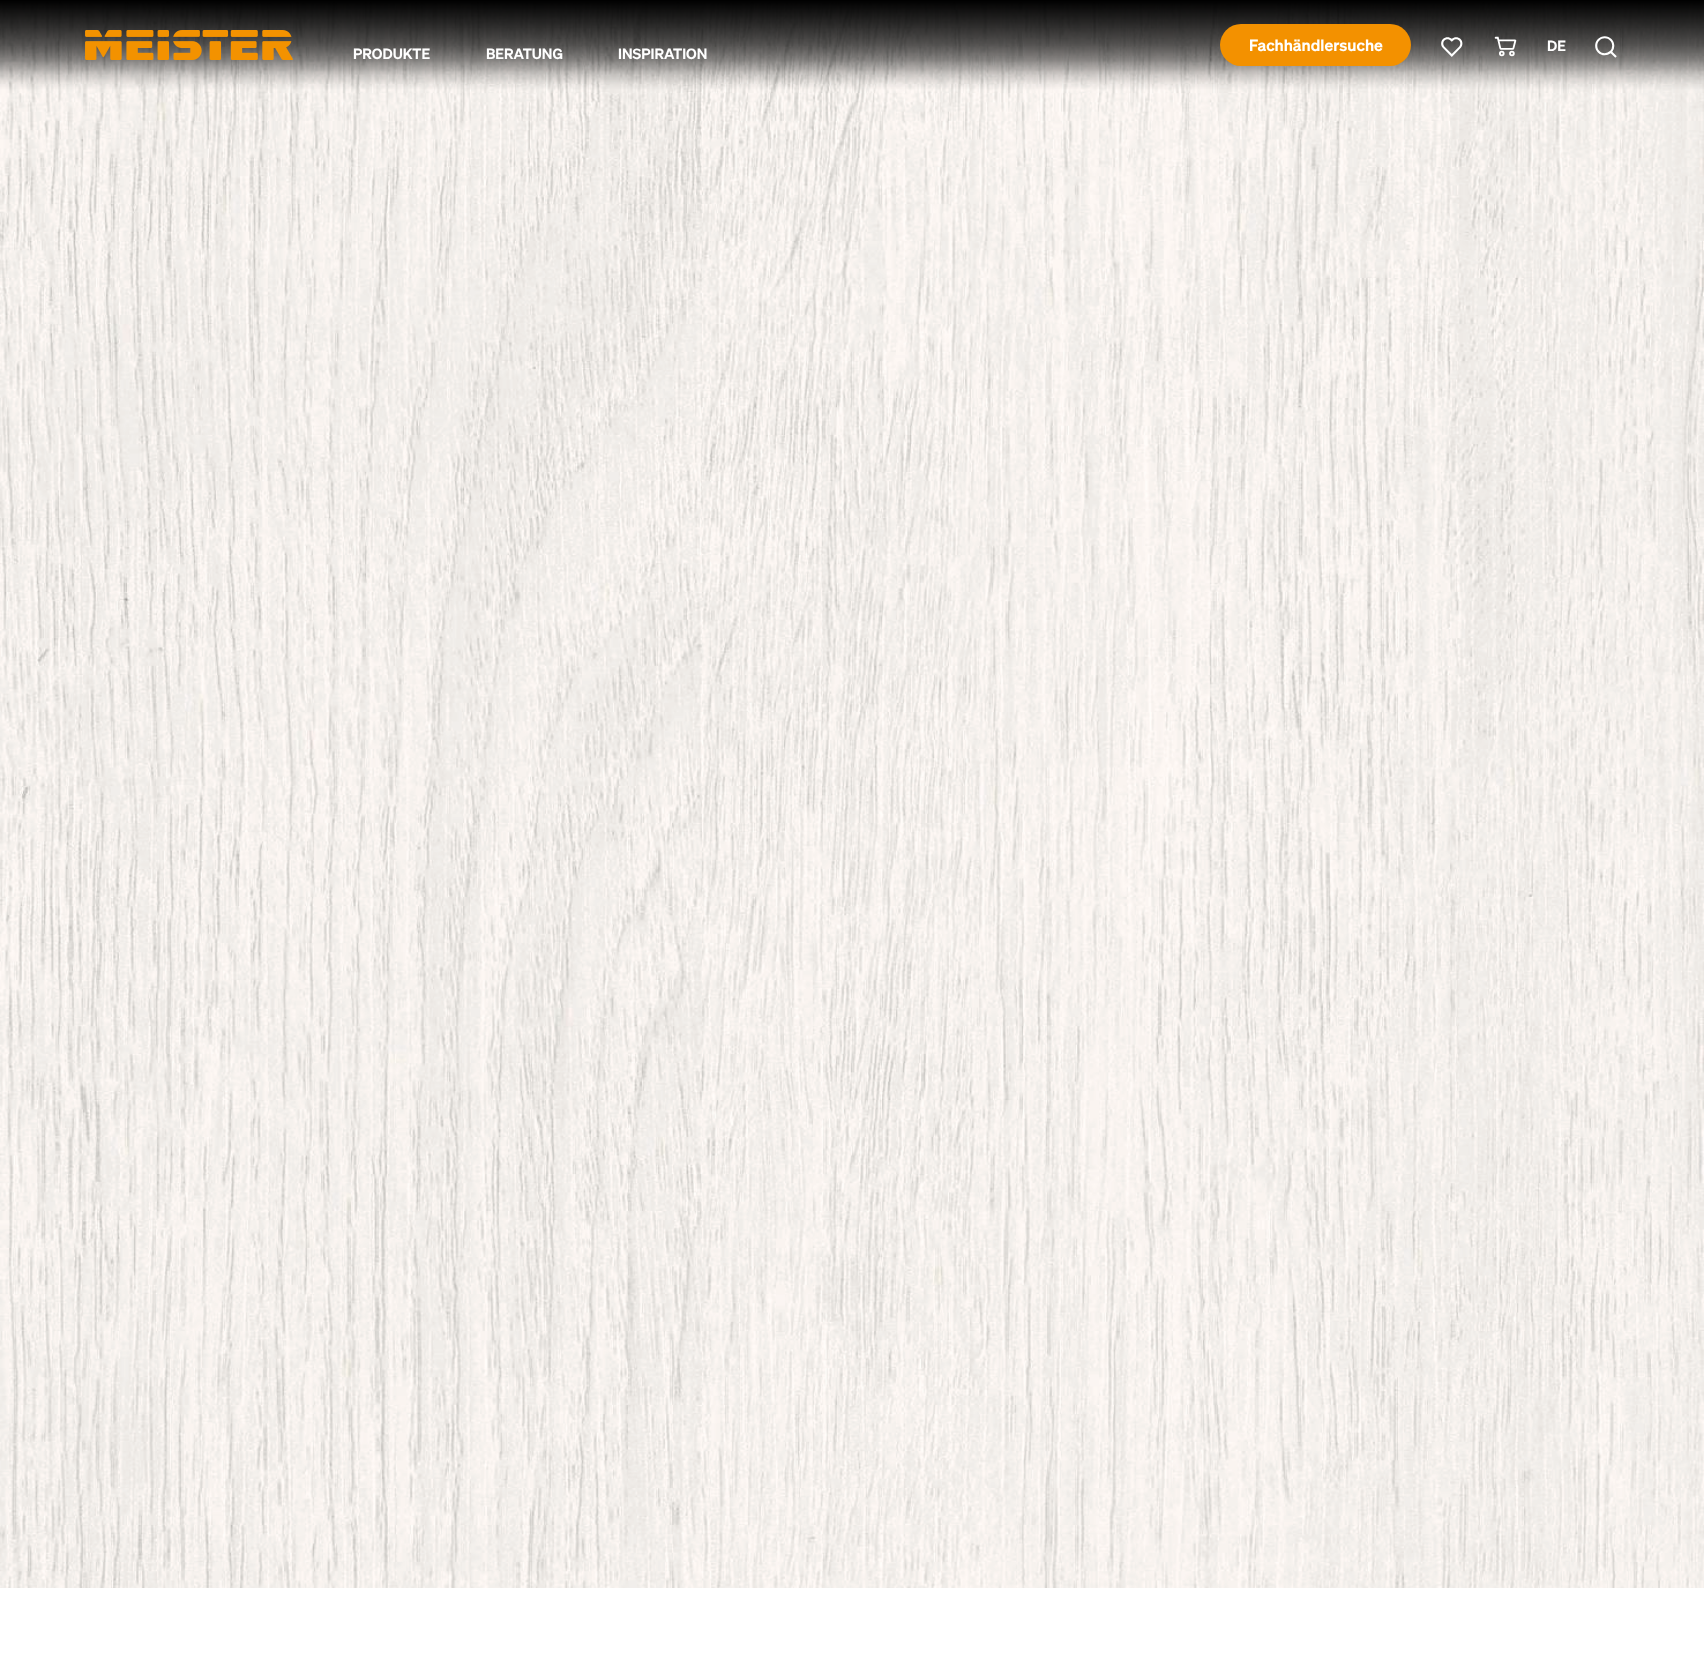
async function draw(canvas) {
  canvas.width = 1704;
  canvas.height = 1678;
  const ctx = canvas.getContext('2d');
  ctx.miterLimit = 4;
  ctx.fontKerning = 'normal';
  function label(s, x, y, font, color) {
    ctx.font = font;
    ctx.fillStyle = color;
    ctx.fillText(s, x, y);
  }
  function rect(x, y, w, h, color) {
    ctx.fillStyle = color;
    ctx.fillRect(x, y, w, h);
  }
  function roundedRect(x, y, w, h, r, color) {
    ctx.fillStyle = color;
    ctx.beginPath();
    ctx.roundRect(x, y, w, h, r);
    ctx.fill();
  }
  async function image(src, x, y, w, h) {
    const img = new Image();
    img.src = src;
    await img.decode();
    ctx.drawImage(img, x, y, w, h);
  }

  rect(0, 0, 1704, 1678, '#fff');
  await image('assets/img1.png', 0, 0, 1704, 1588);
  await image('assets/img2.png', 85, 30, 208, 30);
  roundedRect(1220, 24, 191, 42, 21, '#f39100');
  label('Fachhändlersuche', 1249, 51, '600 16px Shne', '#fff');
  await image('assets/img3.png', 1441, 37, 22, 20);
  await image('assets/img4.png', 1494, 36, 23, 21);
  label('DE', 1547, 51, '600 14.5px Shne', '#fff');
  await image('assets/img5.png', 1595, 36, 22, 22);
  label('PRODUKTE', 353, 59, '600 14.5px Shne', '#fff');
  label('BERATUNG', 486, 59, '600 14.5px Shne', '#fff');
  label('INSPIRATION', 618, 59, '600 14.5px Shne', '#fff');
}

draw(document.querySelector('canvas'));
